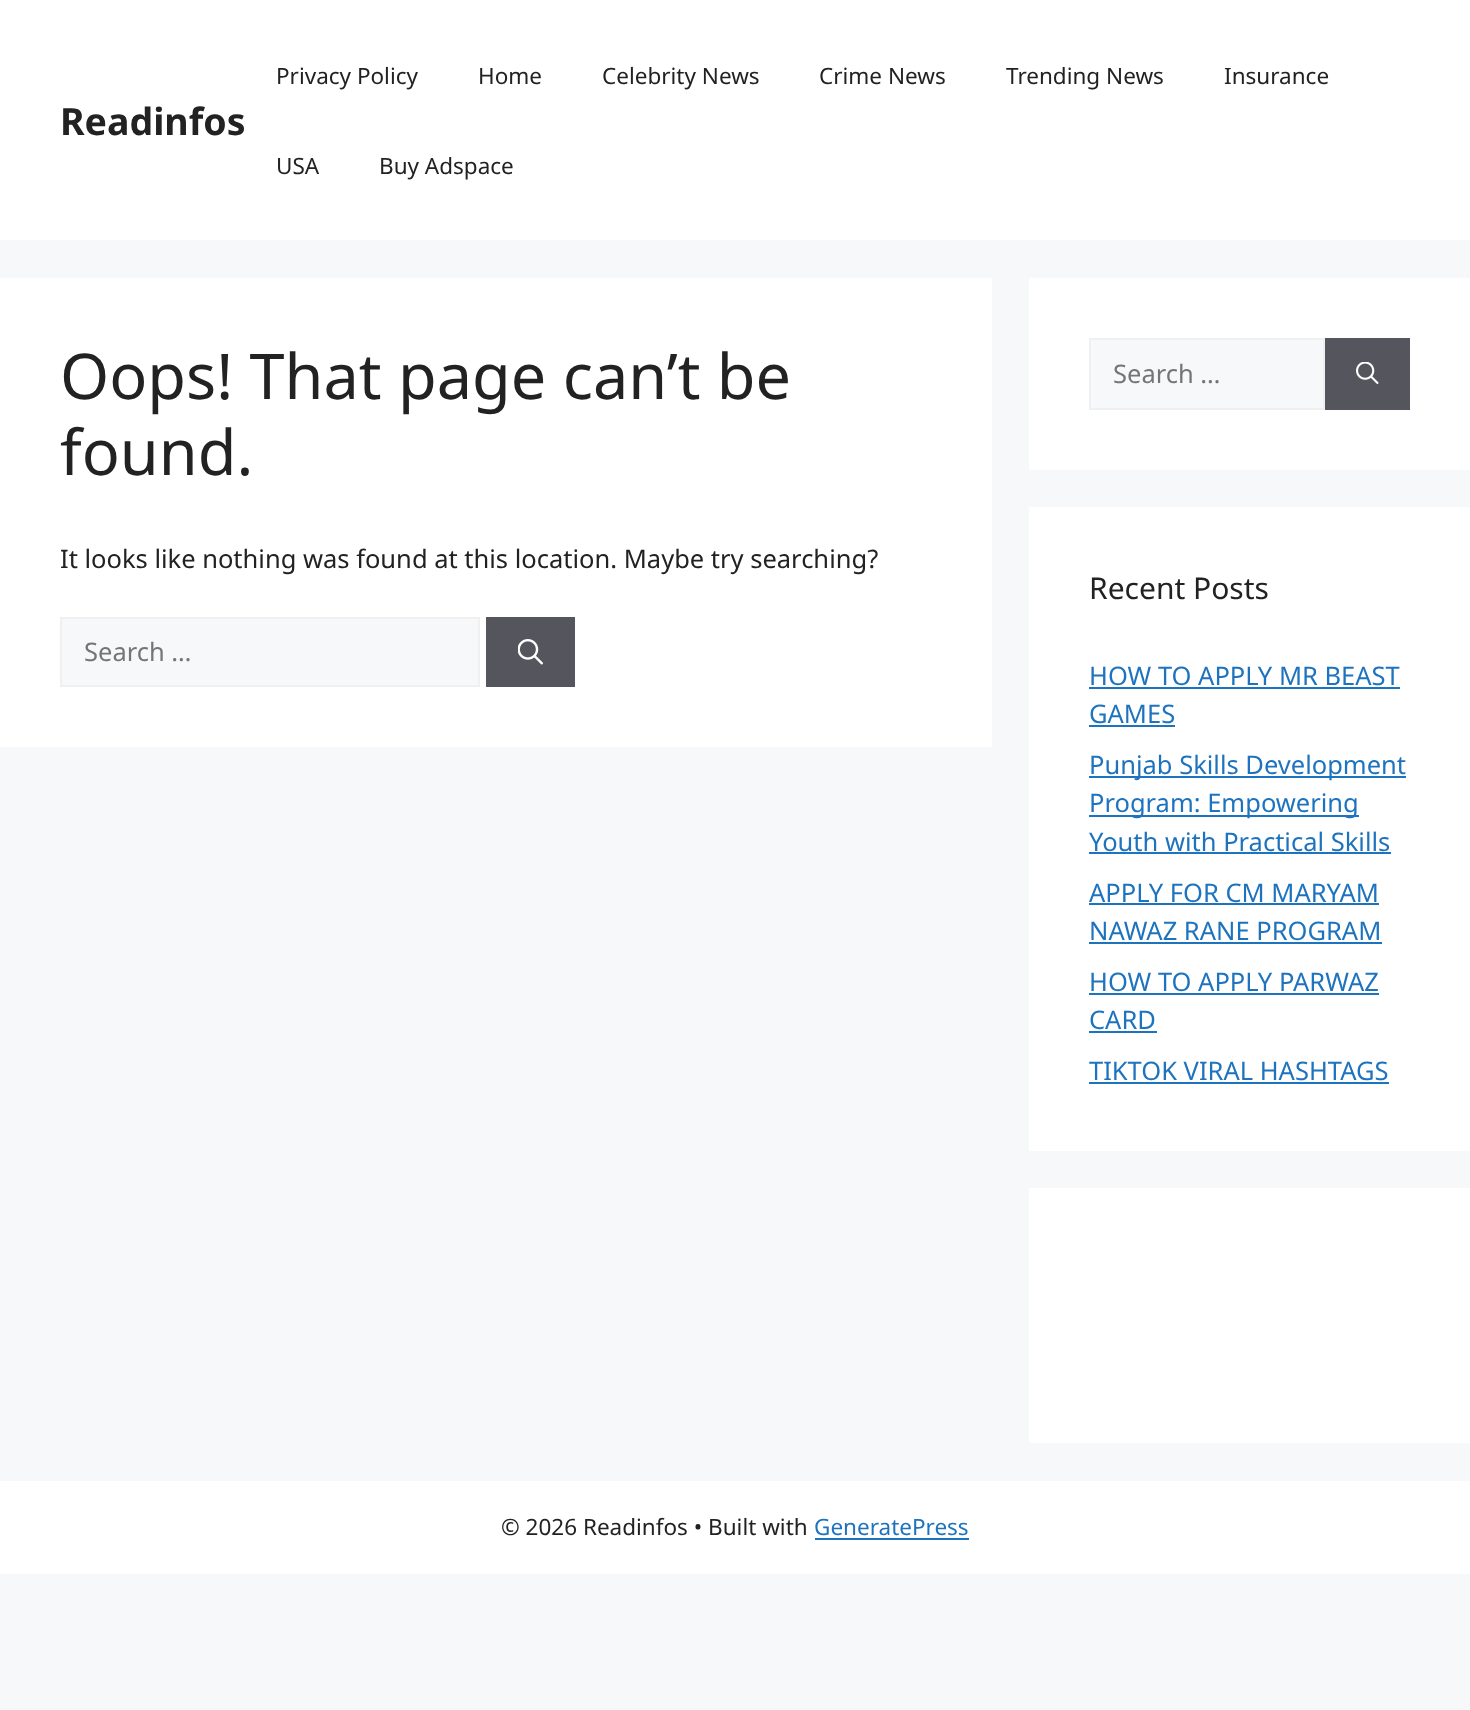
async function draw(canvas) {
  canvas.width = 1470;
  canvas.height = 1710;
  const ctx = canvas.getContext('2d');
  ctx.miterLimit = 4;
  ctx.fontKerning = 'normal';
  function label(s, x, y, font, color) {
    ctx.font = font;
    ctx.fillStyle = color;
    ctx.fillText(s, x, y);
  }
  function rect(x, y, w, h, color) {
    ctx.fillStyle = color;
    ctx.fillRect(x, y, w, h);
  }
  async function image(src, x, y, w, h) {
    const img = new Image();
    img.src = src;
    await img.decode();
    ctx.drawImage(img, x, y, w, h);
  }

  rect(0, 0, 1470, 1710, '#f7f8f9');
  rect(0, 0, 1470, 240, '#fff');
  label('Readinfos', 60, 135, 'bold 37.5px Noto Sans', '#222');
  label('Privacy Policy', 276, 84, '22.5px Noto Sans', '#222');
  label('Home', 478, 84, '22.5px Noto Sans', '#222');
  label('Celebrity News', 602, 84, '22.5px Noto Sans', '#222');
  label('Crime News', 819, 84, '22.5px Noto Sans', '#222');
  label('Trending News', 1006, 84, '22.5px Noto Sans', '#222');
  label('Insurance', 1224, 84, '22.5px Noto Sans', '#222');
  label('USA', 276, 174, '22.5px Noto Sans', '#222');
  label('Buy Adspace', 379, 174, '22.5px Noto Sans', '#222');
  rect(0, 278, 992, 469, '#fff');
  label('Oops! That page can’t be', 60, 399, '63px Noto Sans', '#222');
  label('found.', 60, 475, '63px Noto Sans', '#222');
  label('It looks like nothing was found at this location. Maybe try searching?', 60, 568, '25.5px Noto Sans', '#222');
  ctx.fillStyle = '#f7f8f9';
  ctx.beginPath();
  ctx.rect(61, 618, 418, 68);
  ctx.fill();
  ctx.strokeStyle = '#f0f0f0';
  ctx.lineWidth = 2;
  ctx.stroke();
  label('Search …', 84, 661, '25.5px Noto Sans', '#757575');
  rect(486, 617, 89, 70, '#55555e');
  await image('assets/img1.png', 518, 639, 25, 26);
  rect(1029, 278, 441, 192, '#fff');
  ctx.fillStyle = '#f7f8f9';
  ctx.beginPath();
  ctx.rect(1090, 339, 234, 70);
  ctx.fill();
  ctx.stroke();
  label('Search …', 1113, 383, '25.5px Noto Sans', '#757575');
  rect(1325, 338, 85, 72, '#55555e');
  await image('assets/img2.png', 1356, 362, 23, 22);
  rect(1029, 507, 441, 644, '#fff');
  label('Recent Posts', 1089, 599, '30px Noto Sans', '#222');
  label('HOW TO APPLY MR BEAST', 1089, 685, '25.5px Noto Sans', '#1e73be');
  rect(1089, 687, 311, 2, '#1e73be');
  label('GAMES', 1089, 723, '25.5px Noto Sans', '#1e73be');
  rect(1089, 725, 86, 2, '#1e73be');
  rect(1089, 776, 317, 2, '#1e73be');
  label('Punjab Skills Development', 1089, 774, '25.5px Noto Sans', '#1e73be');
  rect(1089, 815, 270, 2, '#1e73be');
  label('Program: Empowering', 1089, 812, '25.5px Noto Sans', '#1e73be');
  label('Youth with Practical Skills', 1089, 851, '25.5px Noto Sans', '#1e73be');
  rect(1089, 852, 302, 2, '#1e73be');
  label('APPLY FOR CM MARYAM', 1089, 902, '25.5px Noto Sans', '#1e73be');
  rect(1089, 903, 290, 2, '#1e73be');
  label('NAWAZ RANE PROGRAM', 1089, 940, '25.5px Noto Sans', '#1e73be');
  rect(1089, 942, 293, 2, '#1e73be');
  label('HOW TO APPLY PARWAZ', 1089, 991, '25.5px Noto Sans', '#1e73be');
  rect(1089, 993, 290, 2, '#1e73be');
  label('CARD', 1089, 1029, '25.5px Noto Sans', '#1e73be');
  rect(1089, 1031, 68, 2, '#1e73be');
  label('TIKTOK VIRAL HASHTAGS', 1089, 1080, '25.5px Noto Sans', '#1e73be');
  rect(1089, 1082, 300, 2, '#1e73be');
  rect(1029, 1188, 441, 255, '#fff');
  rect(0, 1481, 1470, 93, '#fff');
  label('© 2026 Readinfos • Built with', 501, 1535, '22.5px Noto Sans', '#222');
  label('GeneratePress', 814, 1535, '22.5px Noto Sans', '#1e73be');
  rect(815, 1538, 154, 2, '#1e73be');
}

draw(document.querySelector('canvas'));
